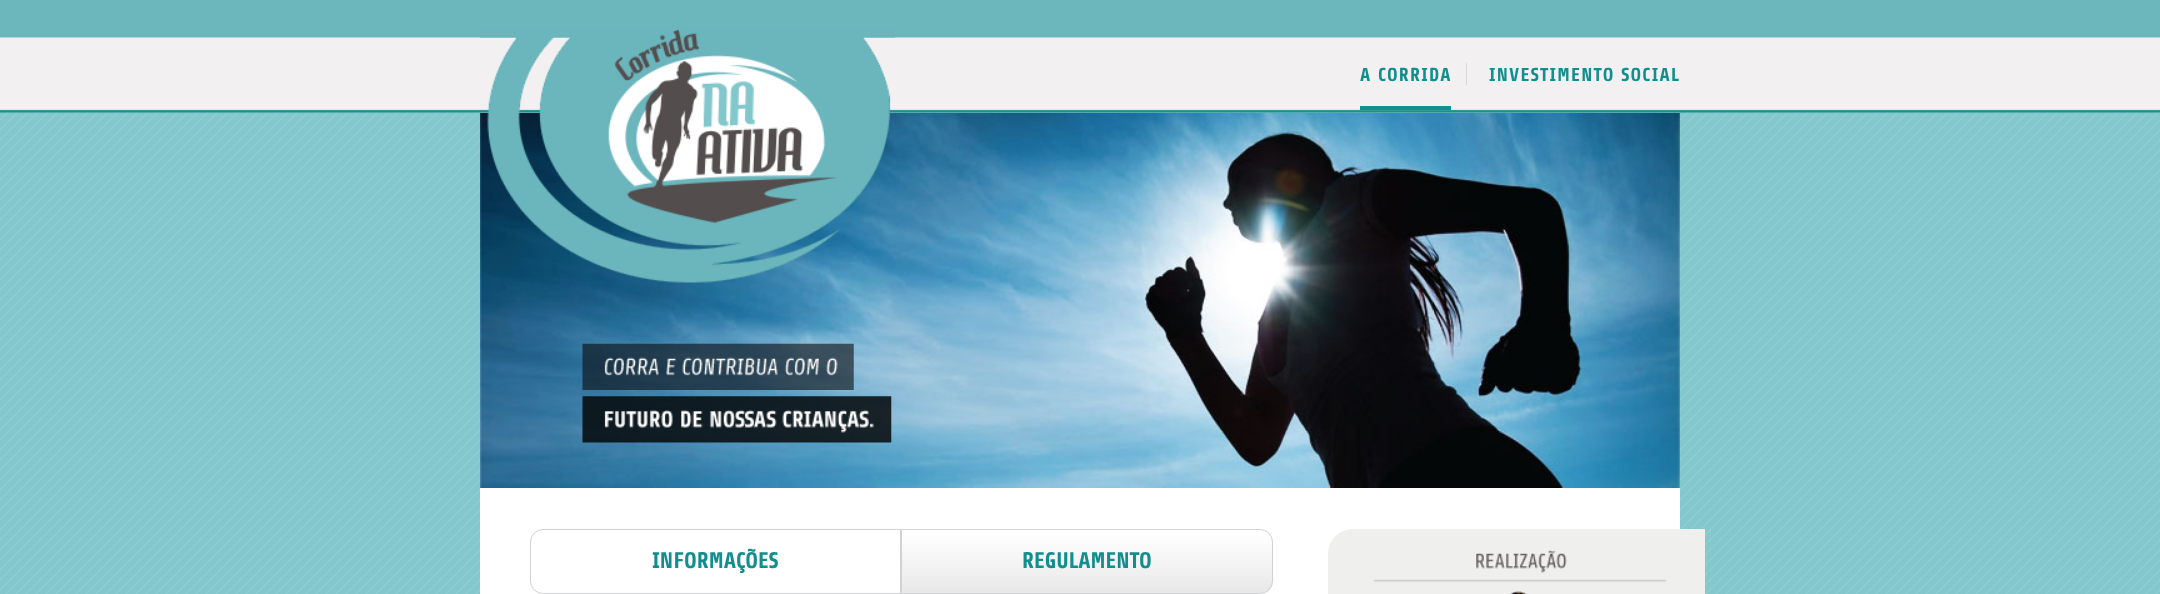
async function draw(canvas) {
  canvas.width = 2160;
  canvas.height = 594;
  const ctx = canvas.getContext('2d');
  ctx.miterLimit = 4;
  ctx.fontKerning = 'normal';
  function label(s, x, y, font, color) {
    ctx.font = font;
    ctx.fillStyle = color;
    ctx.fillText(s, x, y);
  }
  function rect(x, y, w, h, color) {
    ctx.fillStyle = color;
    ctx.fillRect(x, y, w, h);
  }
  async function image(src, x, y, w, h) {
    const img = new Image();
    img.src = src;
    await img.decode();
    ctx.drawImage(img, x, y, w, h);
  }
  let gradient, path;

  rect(0, 0, 2160, 594, '#82c8cc');
  await image('assets/img1.png', 0, 112, 2160, 482);
  await image('assets/img2.png', 0, 0, 2160, 113);
  await image('assets/img4.png', 480, 113, 1200, 375);
  await image('assets/img3.png', 480, 29, 415, 254);
  rect(1360, 106, 91, 4, '#138e8e');
  ctx.letterSpacing = '1.25px';
  label('A CORRIDA', 1360, 81, 'bold 18.75px Share', '#138e8e');
  rect(1466, 63, 1, 22, '#d9d9d9');
  label('INVESTIMENTO SOCIAL', 1489, 81, 'bold 18.75px Share', '#138e8e');
  await image('assets/img5.png', 582, 343, 272, 47);
  await image('assets/img6.png', 582, 396, 310, 47);
  rect(480, 488, 1200, 106, '#fff');
  ctx.beginPath();
  ctx.roundRect(530.5, 529.5, 370, 64, [12.5, 0, 0, 12.5]);
  ctx.strokeStyle = '#d1d2d4';
  ctx.stroke();
  ctx.letterSpacing = '0px';
  label('INFORMAÇÕES', 652, 568, 'bold 22.5px Share', '#138e8e');
  ctx.save();
  ctx.beginPath();
  ctx.roundRect(901, 529, 372, 65, [0, 13, 13, 0]);
  ctx.clip();
  gradient = ctx.createLinearGradient(903, 530, 903, 593);
  gradient.addColorStop(0.05, '#fff');
  gradient.addColorStop(1, '#e8e8e8');
  ctx.fillStyle = gradient;
  ctx.fillRect(902, 530, 371, 63);
  ctx.restore();
  ctx.beginPath();
  ctx.roundRect(901.5, 529.5, 371, 64, [0, 12.5, 12.5, 0]);
  ctx.stroke();
  label('REGULAMENTO', 1022, 568, 'bold 22.5px Share', '#138e8e');
  ctx.fillStyle = '#efefee';
  path = new Path2D('M1353 529H1705V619H1353C1339 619 1328 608 1328 594V554C1328 540 1339 529 1353 529Z');
  ctx.fill(path);
  await image('assets/img7.png', 1373, 550, 294, 44);
}

draw(document.querySelector('canvas'));
